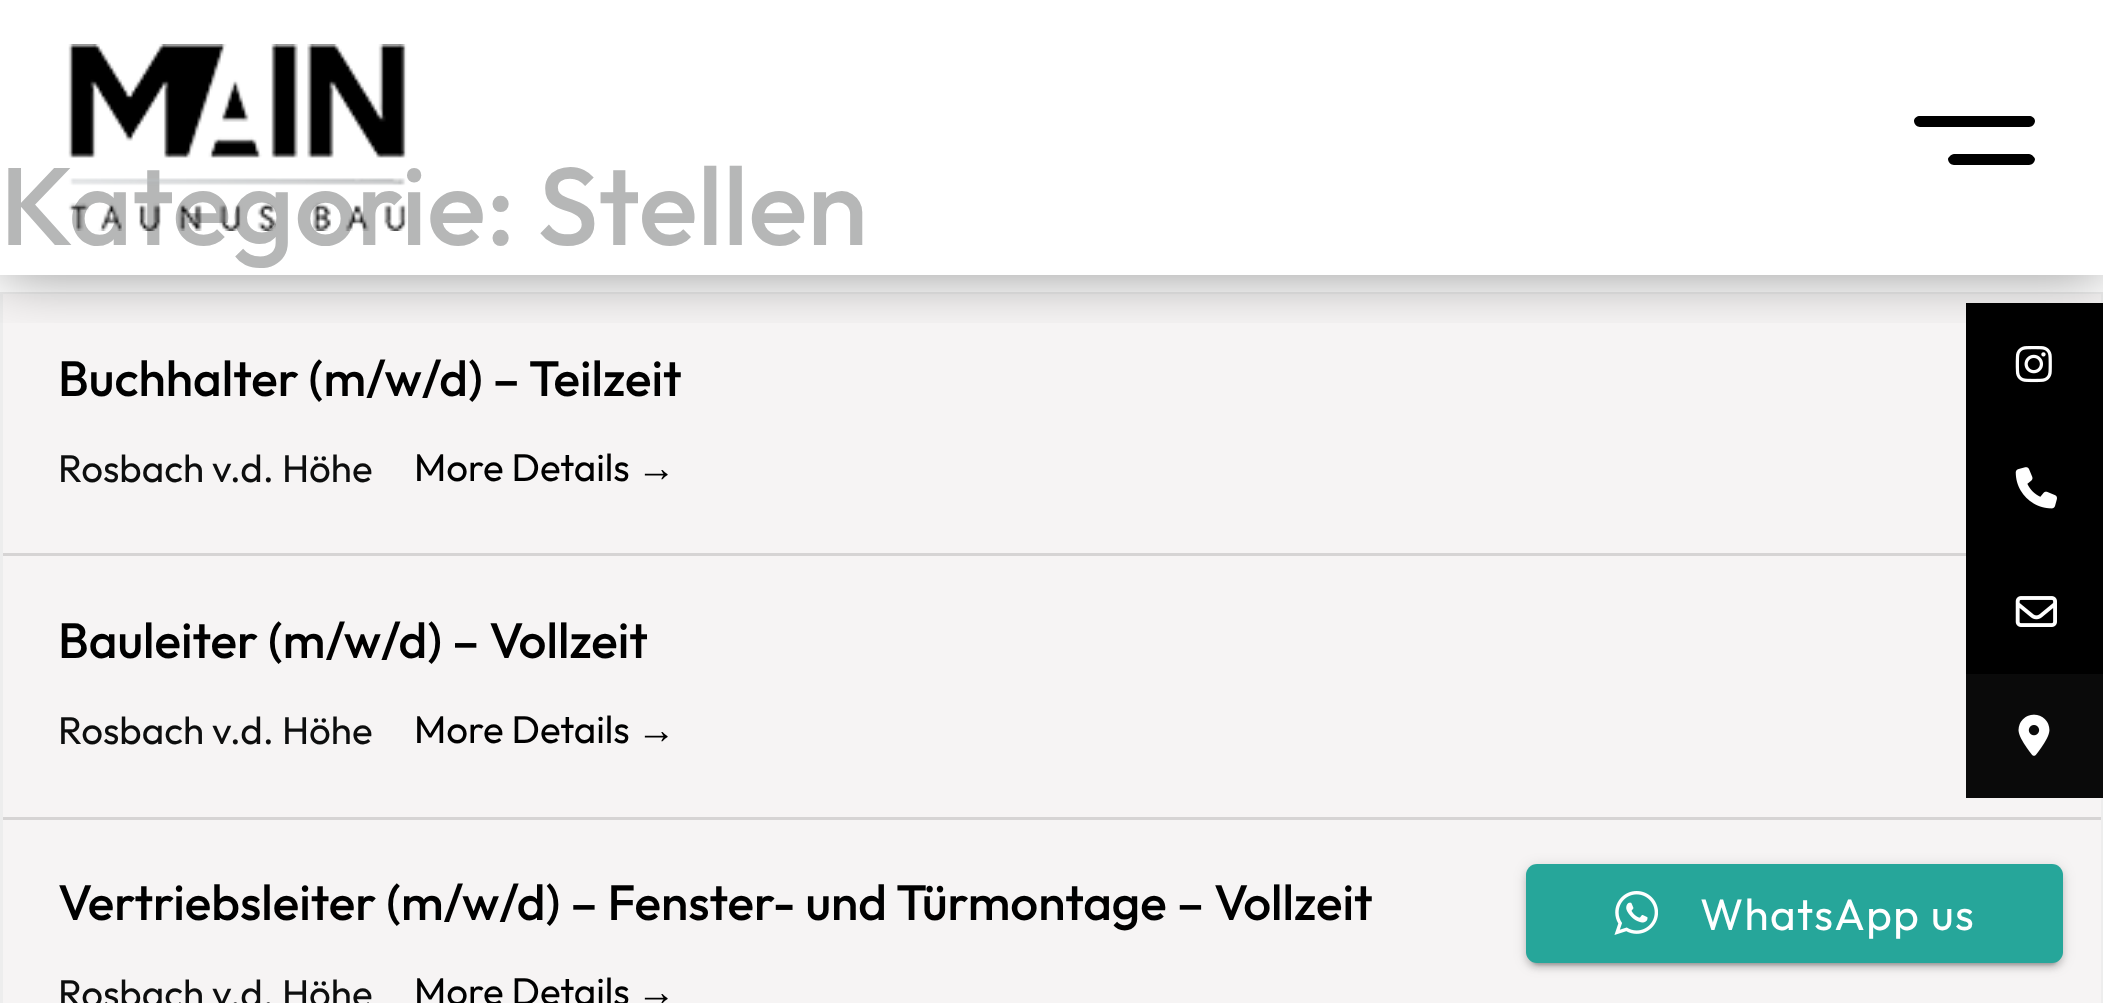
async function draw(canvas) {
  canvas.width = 2103;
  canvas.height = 1003;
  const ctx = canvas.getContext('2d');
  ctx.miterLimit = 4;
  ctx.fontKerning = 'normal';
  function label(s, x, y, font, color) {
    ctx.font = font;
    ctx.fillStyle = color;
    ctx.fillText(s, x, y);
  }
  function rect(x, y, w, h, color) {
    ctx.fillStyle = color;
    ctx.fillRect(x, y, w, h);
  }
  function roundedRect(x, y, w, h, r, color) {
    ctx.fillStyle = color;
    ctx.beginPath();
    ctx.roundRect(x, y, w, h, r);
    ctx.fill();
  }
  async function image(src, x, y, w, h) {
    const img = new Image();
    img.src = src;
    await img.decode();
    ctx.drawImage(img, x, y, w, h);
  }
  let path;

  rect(0, 0, 2103, 1003, '#fff');
  ctx.strokeStyle = '#ededed';
  ctx.lineWidth = 3;
  ctx.strokeRect(1.5, 293.5, 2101, 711);
  rect(3, 294, 2098, 259, '#f6f4f4');
  ctx.save();
  ctx.beginPath();
  ctx.rect(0, 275, 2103, 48);
  ctx.clip();
  ctx.fillStyle = '#0000006b';
  ctx.filter = 'blur(29px)';
  ctx.beginPath();
  ctx.rect(0, 0, 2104, 275);
  ctx.fill();
  ctx.filter = 'none';
  ctx.restore();
  label('Kategorie: Stellen', 0, 245, '500 110px Outfit', '#b6b7b7');
  await image('assets/img1.png', 68, 44, 339, 187);
  ctx.fillStyle = '#000';
  path = new Path2D('M2029 127H1920C1917 127 1914 124 1914 121C1914 118 1917 116 1920 116H2029C2032 116 2035 118 2035 121C2035 124 2032 127 2029 127ZM1954 154H2029C2032 154 2035 158 2035 159C2035 162 2032 165 2029 165H1954C1951 165 1948 162 1948 159C1948 158 1951 154 1954 154Z');
  ctx.fill(path, 'evenodd');
  rect(3, 553, 1963, 3, '#d6d4d4');
  label('Buchhalter (m/w/d) – Teilzeit', 58, 396, '500 49.5px Outfit', '#000');
  label('Rosbach v.d. Höhe', 58, 482, '38.5px Outfit', '#0d0e0e');
  label('More Details', 414, 481, '38.5px Outfit', '#000');
  label('→', 637, 481, '38.5px Liberation Sans', '#000');
  rect(3, 556, 2098, 261, '#f6f4f4');
  rect(3, 817, 2098, 3, '#d6d4d4');
  label('Bauleiter (m/w/d) – Vollzeit', 58, 658, '500 49.5px Outfit', '#000');
  label('Rosbach v.d. Höhe', 58, 744, '38.5px Outfit', '#0d0e0e');
  label('More Details', 414, 743, '38.5px Outfit', '#000');
  label('→', 637, 743, '38.5px Liberation Sans', '#000');
  rect(3, 820, 2098, 183, '#f6f4f4');
  label('Vertriebsleiter (m/w/d) – Fenster- und Türmontage – Vollzeit', 58, 920, '500 49.5px Outfit', '#000');
  label('Rosbach v.d. Höhe', 58, 1007, '38.5px Outfit', '#0d0e0e');
  label('More Details', 414, 1005, '38.5px Outfit', '#000');
  label('→', 637, 1005, '38.5px Liberation Sans', '#000');
  rect(1966, 303, 137, 371, '#000');
  await image('assets/img2.png', 2015, 346, 37, 37);
  await image('assets/img3.png', 2015, 467, 42, 42);
  await image('assets/img4.png', 2015, 596, 42, 31);
  rect(1966, 674, 137, 124, '#0a0a0a');
  await image('assets/img5.png', 2018, 714, 32, 42);
  ctx.fillStyle = '#00000033';
  ctx.filter = 'blur(1.5px)';
  ctx.beginPath();
  ctx.roundRect(1532, 877, 525, 88, 6);
  ctx.fill();
  ctx.filter = 'none';
  ctx.fillStyle = '#0000001f';
  ctx.filter = 'blur(7px)';
  ctx.beginPath();
  ctx.roundRect(1526, 866, 537, 99, 11);
  ctx.fill();
  ctx.filter = 'none';
  ctx.fillStyle = '#00000024';
  ctx.filter = 'blur(3px)';
  ctx.beginPath();
  ctx.roundRect(1526, 869, 537, 99, 11);
  ctx.fill();
  ctx.filter = 'none';
  roundedRect(1526, 864, 537, 99, 11, '#26a69a');
  await image('assets/img6.png', 1614, 891, 44, 44);
  ctx.letterSpacing = '1.4px';
  label('WhatsApp us', 1700, 930, '44px Outfit', '#fff');
}

draw(document.querySelector('canvas'));
